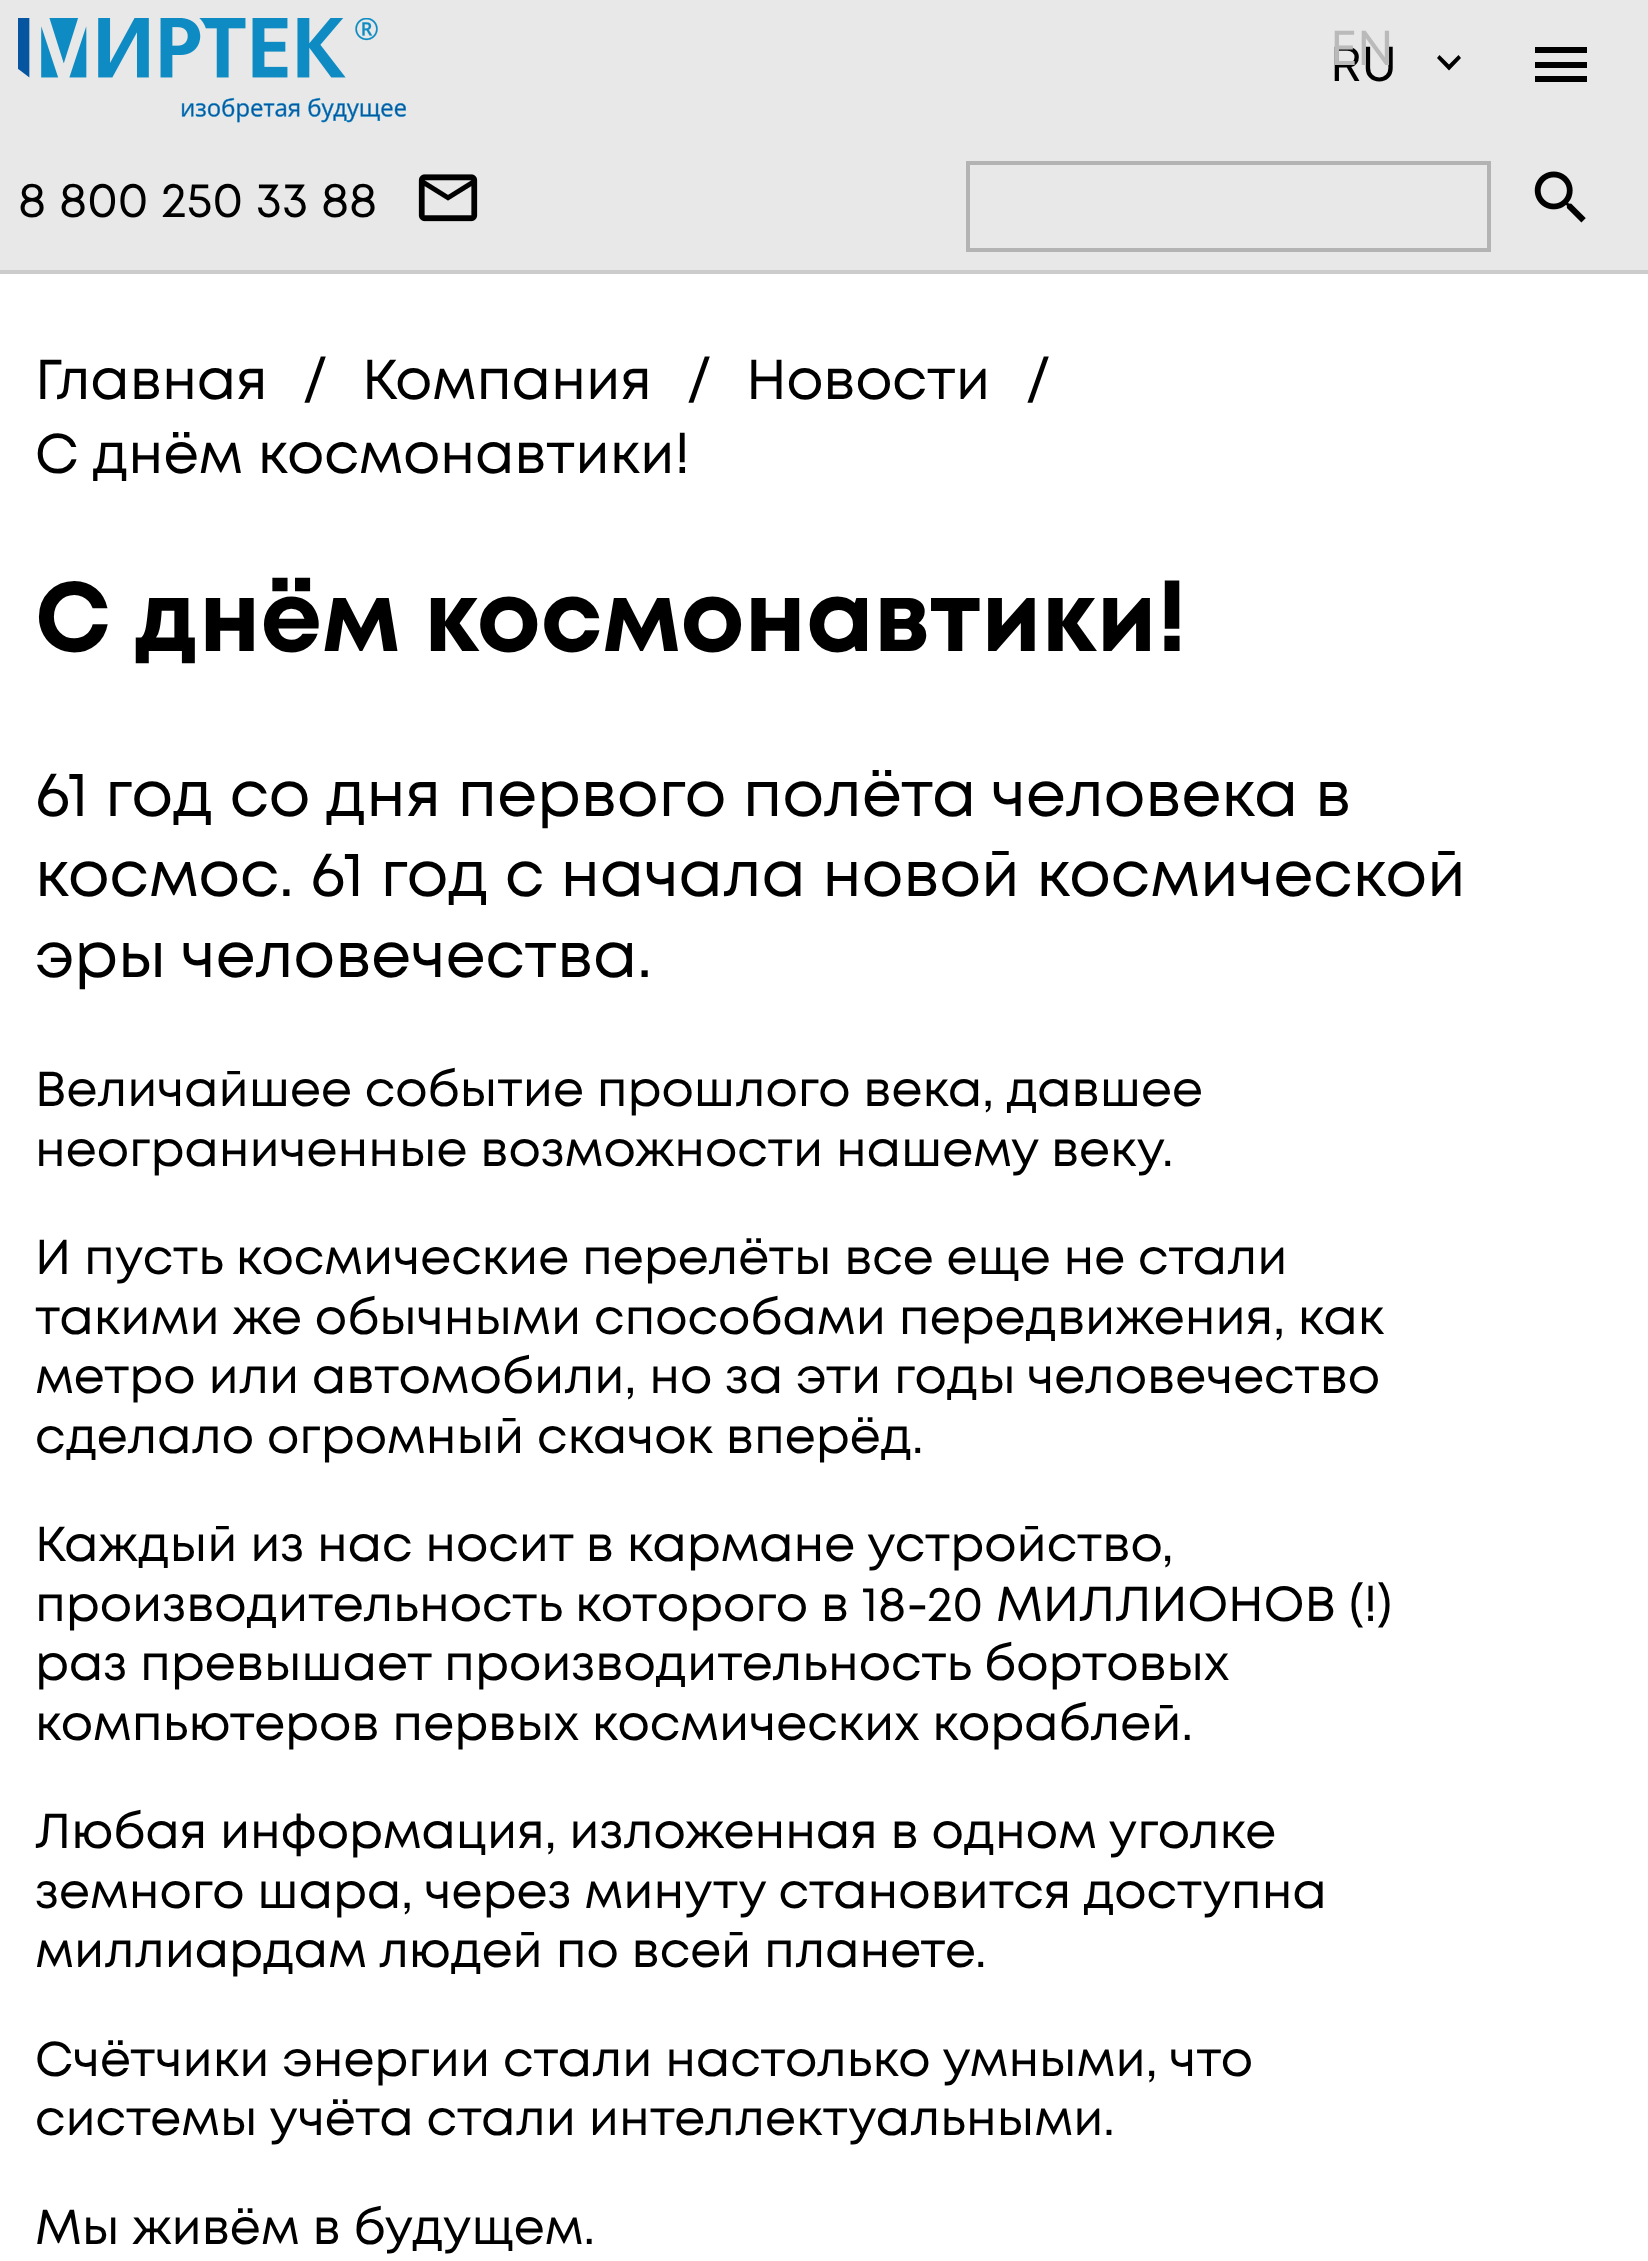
async function draw(canvas) {
  canvas.width = 1648;
  canvas.height = 2261;
  const ctx = canvas.getContext('2d');
  ctx.miterLimit = 4;
  ctx.fontKerning = 'normal';
  function label(s, x, y, font, color) {
    ctx.font = font;
    ctx.fillStyle = color;
    ctx.fillText(s, x, y);
  }
  function rect(x, y, w, h, color) {
    ctx.fillStyle = color;
    ctx.fillRect(x, y, w, h);
  }
  async function image(src, x, y, w, h) {
    const img = new Image();
    img.src = src;
    await img.decode();
    ctx.drawImage(img, x, y, w, h);
  }
  let path;

  rect(0, 0, 1648, 2261, '#fff');
  rect(0, 0, 1648, 270, '#e8e8e8');
  rect(0, 270, 1648, 4, '#ccc');
  await image('assets/img1.png', 18, 18, 388, 105);
  label('RU', 1330, 81, '49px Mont', '#000');
  label('EN', 1330, 65, '49px Mont', '#bababa');
  ctx.fillStyle = '#000';
  path = new Path2D('M1439.5 55L1449 64.5L1458.5 55L1461 58L1449 70.5L1437 58Z');
  ctx.fill(path);
  path = new Path2D('M1535 47H1587V53H1535ZM1535 62H1587V68H1535ZM1535 76H1587V82H1535Z');
  ctx.fill(path);
  ctx.strokeStyle = '#b3b3b3';
  ctx.lineWidth = 4;
  ctx.strokeRect(968, 163, 521, 87);
  await image('assets/img2.png', 1534, 171, 52, 52);
  label('8 800 250 33 88', 18, 217, '49px Mont', '#000');
  await image('assets/img3.png', 418, 174, 60, 48);
  label('Главная', 35, 399, '56px Mont', '#000');
  label('/', 303, 399, '56px Mont', '#000');
  label('Компания', 362, 399, '56px Mont', '#000');
  label('/', 687, 399, '56px Mont', '#000');
  label('Новости', 746, 399, '56px Mont', '#000');
  label('/', 1026, 399, '56px Mont', '#000');
  label('С днём космонавтики!', 35, 473, '56px Mont', '#000');
  label('С днём космонавтики!', 35, 651, 'bold 98px Mont', '#000');
  label('61 год со дня первого полёта человека в', 35, 816, '63px Mont', '#000');
  label('космос. 61 год с начала новой космической', 35, 896, '63px Mont', '#000');
  label('эры человечества.', 35, 977, '63px Mont', '#000');
  label('Величайшее событие прошлого века, давшее', 35, 1106, '49px Mont', '#000');
  label('неограниченные возможности нашему веку.', 35, 1166, '49px Mont', '#000');
  label('И пусть космические перелёты все еще не стали', 35, 1274, '49px Mont', '#000');
  label('такими же обычными способами передвижения, как', 35, 1334, '49px Mont', '#000');
  label('метро или автомобили, но за эти годы человечество', 35, 1393, '49px Mont', '#000');
  label('сделало огромный скачок вперёд.', 35, 1453, '49px Mont', '#000');
  label('Каждый из нас носит в кармане устройство,', 35, 1561, '49px Mont', '#000');
  label('производительность которого в 18-20 МИЛЛИОНОВ (!)', 35, 1621, '49px Mont', '#000');
  label('раз превышает производительность бортовых', 35, 1680, '49px Mont', '#000');
  label('компьютеров первых космических кораблей.', 35, 1740, '49px Mont', '#000');
  label('Любая информация, изложенная в одном уголке', 35, 1848, '49px Mont', '#000');
  label('земного шара, через минуту становится доступна', 35, 1908, '49px Mont', '#000');
  label('миллиардам людей по всей планете.', 35, 1967, '49px Mont', '#000');
  label('Счётчики энергии стали настолько умными, что', 35, 2076, '49px Mont', '#000');
  label('системы учёта стали интеллектуальными.', 35, 2135, '49px Mont', '#000');
  label('Мы живём в будущем.', 35, 2244, '49px Mont', '#000');
}

draw(document.querySelector('canvas'));
